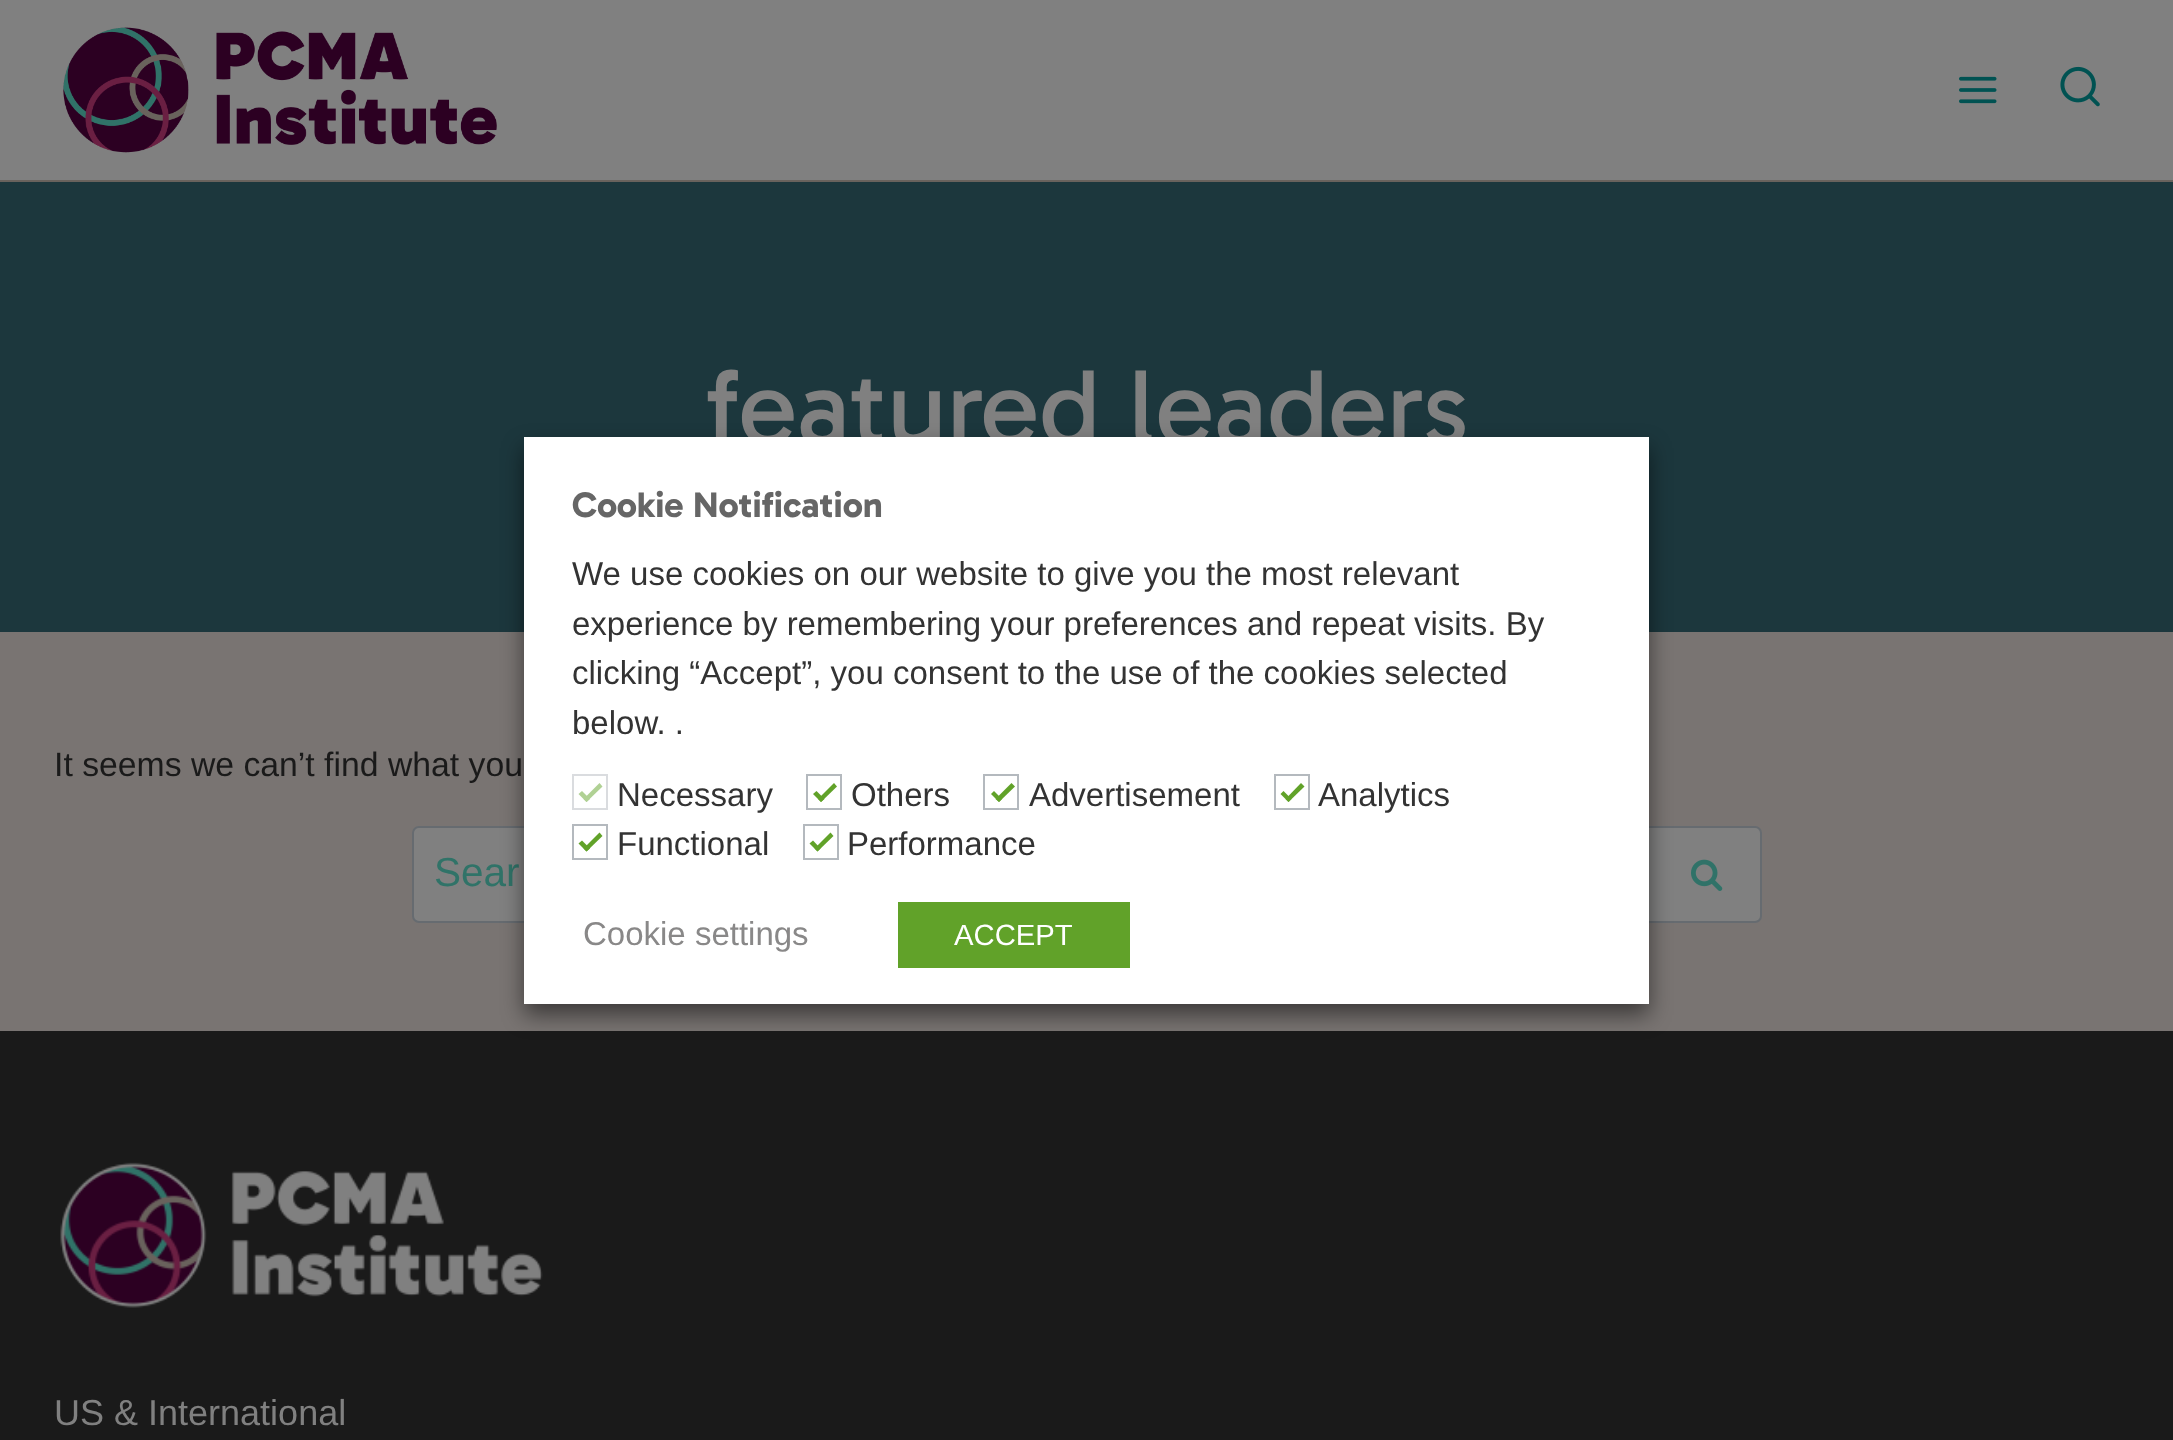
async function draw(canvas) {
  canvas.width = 2173;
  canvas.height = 1440;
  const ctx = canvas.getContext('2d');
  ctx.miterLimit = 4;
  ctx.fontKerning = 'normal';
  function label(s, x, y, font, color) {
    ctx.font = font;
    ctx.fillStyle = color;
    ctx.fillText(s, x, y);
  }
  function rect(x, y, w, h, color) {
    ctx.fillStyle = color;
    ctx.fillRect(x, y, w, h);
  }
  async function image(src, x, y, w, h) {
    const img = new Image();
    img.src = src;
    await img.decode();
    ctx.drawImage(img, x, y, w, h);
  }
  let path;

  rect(0, 0, 2173, 1440, '#797472');
  rect(0, 0, 2173, 180, '#808080');
  rect(0, 180, 2173, 2, '#69625d');
  await image('assets/img1.png', 63, 27, 434, 126);
  await image('assets/img2.png', 1959, 76, 38, 28);
  await image('assets/img3.png', 2060, 66, 40, 41);
  rect(0, 182, 2173, 450, '#1c373d');
  label('featured leaders', 705, 444, '108px Gabarito', '#808080');
  label('It seems we can’t find what you', 54, 776, '33.75px Liberation Sans', '#1a1a1a');
  ctx.fillStyle = '#808080';
  ctx.beginPath();
  ctx.roundRect(413, 827, 1348, 95, 6);
  ctx.fill();
  ctx.strokeStyle = '#666b70';
  ctx.lineWidth = 2;
  ctx.stroke();
  label('Sear', 434, 886, '40.5px Liberation Sans', '#307368');
  await image('assets/img4.png', 1691, 859, 32, 32);
  rect(0, 1031, 2173, 409, '#1a1a1a');
  await image('assets/img5.png', 60, 1162, 483, 146);
  label('US & International', 54, 1425, '36px Liberation Sans', '#808080');
  ctx.fillStyle = '#00000080';
  ctx.filter = 'blur(11px)';
  ctx.beginPath();
  ctx.rect(524, 448, 1125, 567);
  ctx.fill();
  ctx.filter = 'none';
  rect(524, 437, 1125, 567, '#fff');
  label('Cookie Notification', 572, 517, 'bold 36px Gabarito', '#666');
  label('We use cookies on our website to give you the most relevant', 572, 585, '33px Liberation Sans', '#333');
  label('experience by remembering your preferences and repeat visits. By', 572, 635, '33px Liberation Sans', '#333');
  label('clicking “Accept”, you consent to the use of the cookies selected', 572, 684, '33px Liberation Sans', '#333');
  label('below. .', 572, 734, '33px Liberation Sans', '#333');
  ctx.strokeStyle = '#dadcdf';
  ctx.strokeRect(573, 775, 34, 34);
  ctx.fillStyle = '#b0d194';
  path = new Path2D('M599.5 783L602.5 786.5L586.5 802L583.5 799Z');
  ctx.fill(path);
  path = new Path2D('M582 791L590 799L586.5 802L578.5 794Z');
  ctx.fill(path);
  label('Necessary', 617, 806, '33px Liberation Sans', '#333');
  ctx.strokeStyle = '#b4b9be';
  ctx.strokeRect(807, 775, 34, 34);
  ctx.fillStyle = '#61a229';
  path = new Path2D('M834 783L837 786.5L821 802L818 799Z');
  ctx.fill(path);
  path = new Path2D('M816.5 791L824.5 799L821 802L813 794Z');
  ctx.fill(path);
  label('Others', 851, 806, '33px Liberation Sans', '#333');
  ctx.strokeRect(984, 775, 34, 34);
  ctx.fillStyle = '#61a229';
  path = new Path2D('M1011.5 783L1015 786.5L999 802L995.5 799Z');
  ctx.fill(path);
  path = new Path2D('M994 791L1002 799L999 802L991 794Z');
  ctx.fill(path);
  label('Advertisement', 1029, 806, '33px Liberation Sans', '#333');
  ctx.strokeRect(1275, 775, 34, 34);
  ctx.fillStyle = '#61a229';
  path = new Path2D('M1301 783L1304.5 786.5L1288.5 802L1285.5 799Z');
  ctx.fill(path);
  path = new Path2D('M1283.5 791L1291.5 799L1288.5 802L1280.5 794Z');
  ctx.fill(path);
  label('Analytics', 1318, 806, '33px Liberation Sans', '#333');
  ctx.strokeRect(573, 825, 34, 34);
  ctx.fillStyle = '#61a229';
  path = new Path2D('M599.5 832.5L602.5 836L586.5 851.5L583.5 848.5Z');
  ctx.fill(path);
  path = new Path2D('M582 840.5L590 848.5L586.5 851.5L578.5 843.5Z');
  ctx.fill(path);
  label('Functional', 617, 855, '33px Liberation Sans', '#333');
  ctx.strokeRect(804, 825, 34, 34);
  ctx.fillStyle = '#61a229';
  path = new Path2D('M830.5 832.5L833.5 836L817.5 851.5L814.5 848.5Z');
  ctx.fill(path);
  path = new Path2D('M813 840.5L820.5 848.5L817.5 851.5L809.5 843.5Z');
  ctx.fill(path);
  label('Performance', 847, 855, '33px Liberation Sans', '#333');
  label('Cookie settings', 583, 945, '33px Liberation Sans', '#898888');
  rect(898, 902, 232, 66, '#61a229');
  label('ACCEPT', 954, 945, '29.25px Liberation Sans', '#fff');
}

draw(document.querySelector('canvas'));
